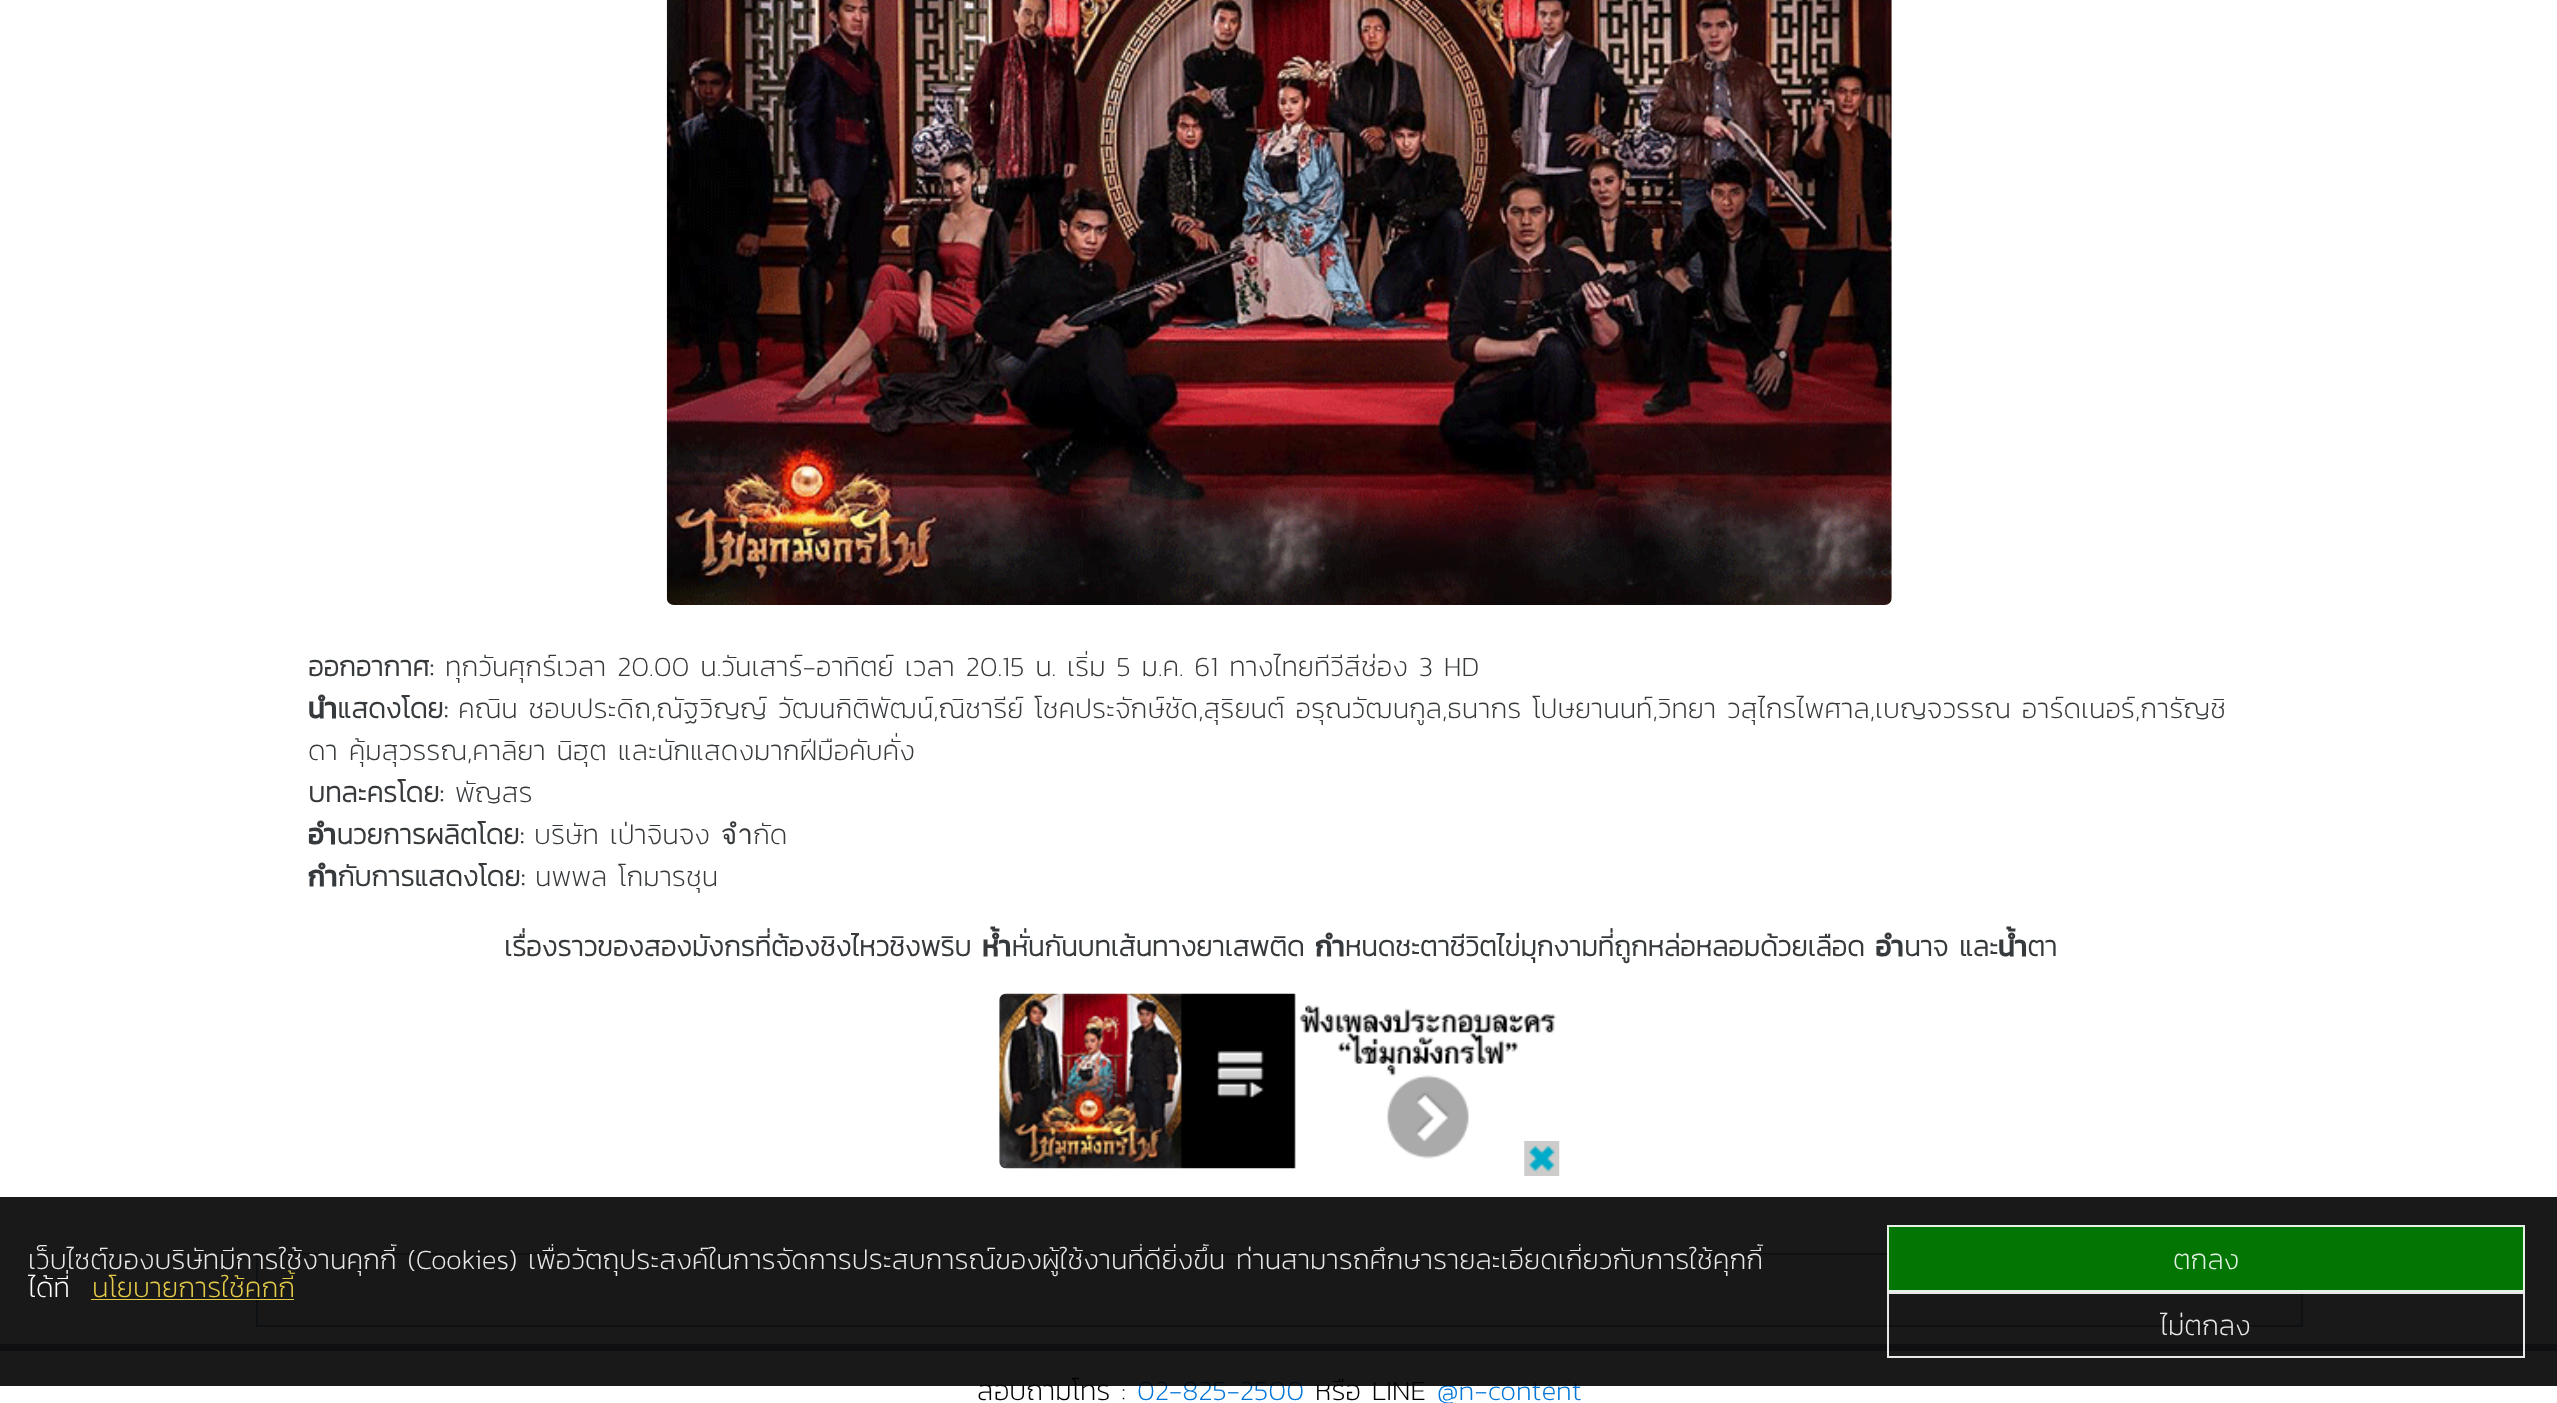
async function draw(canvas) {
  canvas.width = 2557;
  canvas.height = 1403;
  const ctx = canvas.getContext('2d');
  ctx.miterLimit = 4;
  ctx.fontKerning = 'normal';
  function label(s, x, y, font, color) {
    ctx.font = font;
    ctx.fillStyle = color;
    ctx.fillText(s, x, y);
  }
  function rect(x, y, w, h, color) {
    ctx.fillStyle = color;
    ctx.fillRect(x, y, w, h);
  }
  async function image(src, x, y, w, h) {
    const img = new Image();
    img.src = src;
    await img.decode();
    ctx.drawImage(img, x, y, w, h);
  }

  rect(0, 0, 2557, 1403, '#fff');
  await image('assets/img1.png', 666, 0, 1226, 605);
  label('ออกอากาศ:', 308, 676, 'bold 28px Kanit', '#373a3c');
  label('ทุกวันศุกร์เวลา 20.00 น.วันเสาร์-อาทิตย์ เวลา 20.15 น. เริ่ม 5 ม.ค. 61 ทางไทยทีวีสีช่อง 3 HD', 445, 676, '200 28px Kanit', '#373a3c');
  label('นำแสดงโดย:', 308, 718, 'bold 28px Kanit', '#373a3c');
  label('คณิน ชอบประดิถ,ณัฐวิญญ์ วัฒนกิติพัฒน์,ณิชารีย์ โชคประจักษ์ชัด,สุริยนต์ อรุณวัฒนกูล,ธนากร โปษยานนท์,วิทยา วสุไกรไพศาล,เบญจวรรณ อาร์ดเนอร์,การัญชิ', 458, 718, '200 28px Kanit', '#373a3c');
  label('ดา คุ้มสุวรรณ,คาลิยา นิฮุต และนักแสดงมากฝีมือคับคั่ง', 308, 760, '200 28px Kanit', '#373a3c');
  label('บทละครโดย:', 308, 802, 'bold 28px Kanit', '#373a3c');
  label('พัญสร', 455, 802, '200 28px Kanit', '#373a3c');
  label('อำนวยการผลิตโดย:', 308, 844, 'bold 28px Kanit', '#373a3c');
  label('บริษัท เป่าจินจง จำกัด', 534, 844, '200 28px Kanit', '#373a3c');
  label('กำกับการแสดงโดย:', 308, 886, 'bold 28px Kanit', '#373a3c');
  label('นพพล โกมารชุน', 535, 886, '200 28px Kanit', '#373a3c');
  label('เรื่องราวของสองมังกรที่ต้องชิงไหวชิงพริบ ห้ำหั่นกันบทเส้นทางยาเสพติด กำหนดชะตาชีวิตไข่มุกงามที่ถูกหล่อหลอมด้วยเลือด อำนาจ และน้ำตา', 504, 956, 'bold 28px Kanit', '#373a3c');
  await image('assets/img2.png', 999, 993, 558, 176);
  await image('assets/img3.png', 1524, 1141, 36, 35);
  ctx.fillStyle = '#edf2f5';
  ctx.beginPath();
  ctx.rect(257, 1254, 2045, 72);
  ctx.fill();
  ctx.strokeStyle = '#93abbc';
  ctx.lineWidth = 2;
  ctx.stroke();
  rect(0, 1344, 2557, 7, '#9a9ca9');
  label('สอบถามโทร :', 977, 1400, '200 28px Kanit', '#000');
  label('02-825-2500', 1137, 1400, '200 28px Kanit', '#0275d8');
  label('หรือ LINE', 1315, 1400, '200 28px Kanit', '#000');
  label('@n-content', 1437, 1400, '200 28px Kanit', '#0275d8');
  rect(0, 1197, 2557, 189, '#000000e6');
  ctx.save();
  ctx.beginPath();
  ctx.rect(28, 1244, 1790, 56);
  ctx.clip();
  label('เว็บไซต์ของบริษัทมีการใช้งานคุกกี้ (Cookies) เพื่อวัตถุประสงค์ในการจัดการประสบการณ์ของผู้ใช้งานที่ดียิ่งขึ้น ท่านสามารถศึกษารายละเอียดเกี่ยวกับการใช้คุกกี้', 28, 1269, '200 28px Kanit', '#e8e8e8');
  label('ได้ที่', 28, 1297, '200 28px Kanit', '#fff');
  ctx.restore();
  rect(91, 1299, 203, 1, '#f9df4ee6');
  ctx.save();
  ctx.beginPath();
  ctx.rect(28, 1244, 1790, 56);
  ctx.clip();
  label('นโยบายการใช้คุกกี้', 92, 1297, '200 28px Kanit', '#e3cb49');
  ctx.restore();
  ctx.fillStyle = '#008000e6';
  ctx.beginPath();
  ctx.rect(1888, 1226, 636, 65);
  ctx.fill();
  ctx.strokeStyle = '#e6f1e6';
  ctx.stroke();
  label('ตกลง', 2173, 1269, '200 28px Kanit', '#e6f1e6');
  ctx.strokeStyle = '#ffffffe6';
  ctx.strokeRect(1888, 1293, 636, 64);
  label('ไม่ตกลง', 2160, 1335, '200 28px Kanit', '#e8e8e8');
}

draw(document.querySelector('canvas'));
